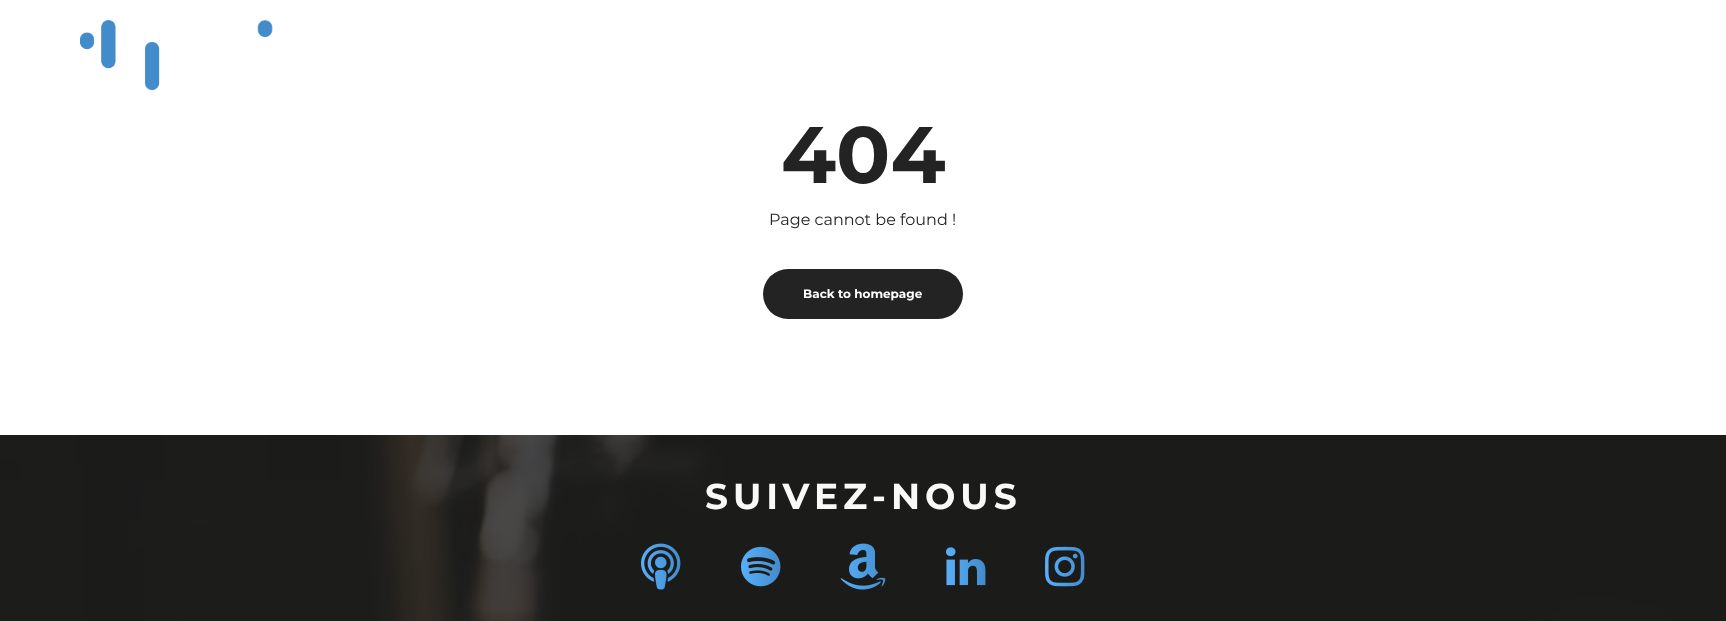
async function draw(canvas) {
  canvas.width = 1726;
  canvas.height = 621;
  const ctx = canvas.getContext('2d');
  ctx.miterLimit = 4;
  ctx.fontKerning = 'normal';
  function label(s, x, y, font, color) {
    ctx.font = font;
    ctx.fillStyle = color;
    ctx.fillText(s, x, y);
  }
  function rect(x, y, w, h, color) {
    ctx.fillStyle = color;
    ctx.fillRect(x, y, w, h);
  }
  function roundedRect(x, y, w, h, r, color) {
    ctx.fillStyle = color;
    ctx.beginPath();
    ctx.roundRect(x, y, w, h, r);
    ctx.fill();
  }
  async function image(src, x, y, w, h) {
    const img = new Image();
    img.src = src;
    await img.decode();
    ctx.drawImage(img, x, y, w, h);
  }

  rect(0, 0, 1726, 621, '#fff');
  await image('assets/img1.png', 80, 20, 193, 71);
  label('404', 781, 183, 'bold 80px Montserrat', '#232324');
  label('Page cannot be found !', 769, 225, '16px Montserrat', '#232324');
  roundedRect(763, 269, 200, 50, 25, '#232324');
  label('Back to homepage', 803, 298, 'bold 12px Montserrat', '#fff');
  await image('assets/img2.png', 0, 435, 1726, 186);
  ctx.letterSpacing = '5px';
  label('SUIVEZ-NOUS', 705, 509, 'bold 36px Montserrat', '#f9f9f9');
  await image('assets/img3.png', 641, 543, 40, 47);
  await image('assets/img4.png', 741, 546, 40, 41);
  await image('assets/img5.png', 840, 543, 46, 47);
  await image('assets/img6.png', 946, 547, 40, 39);
  await image('assets/img7.png', 1045, 546, 40, 41);
}

draw(document.querySelector('canvas'));
